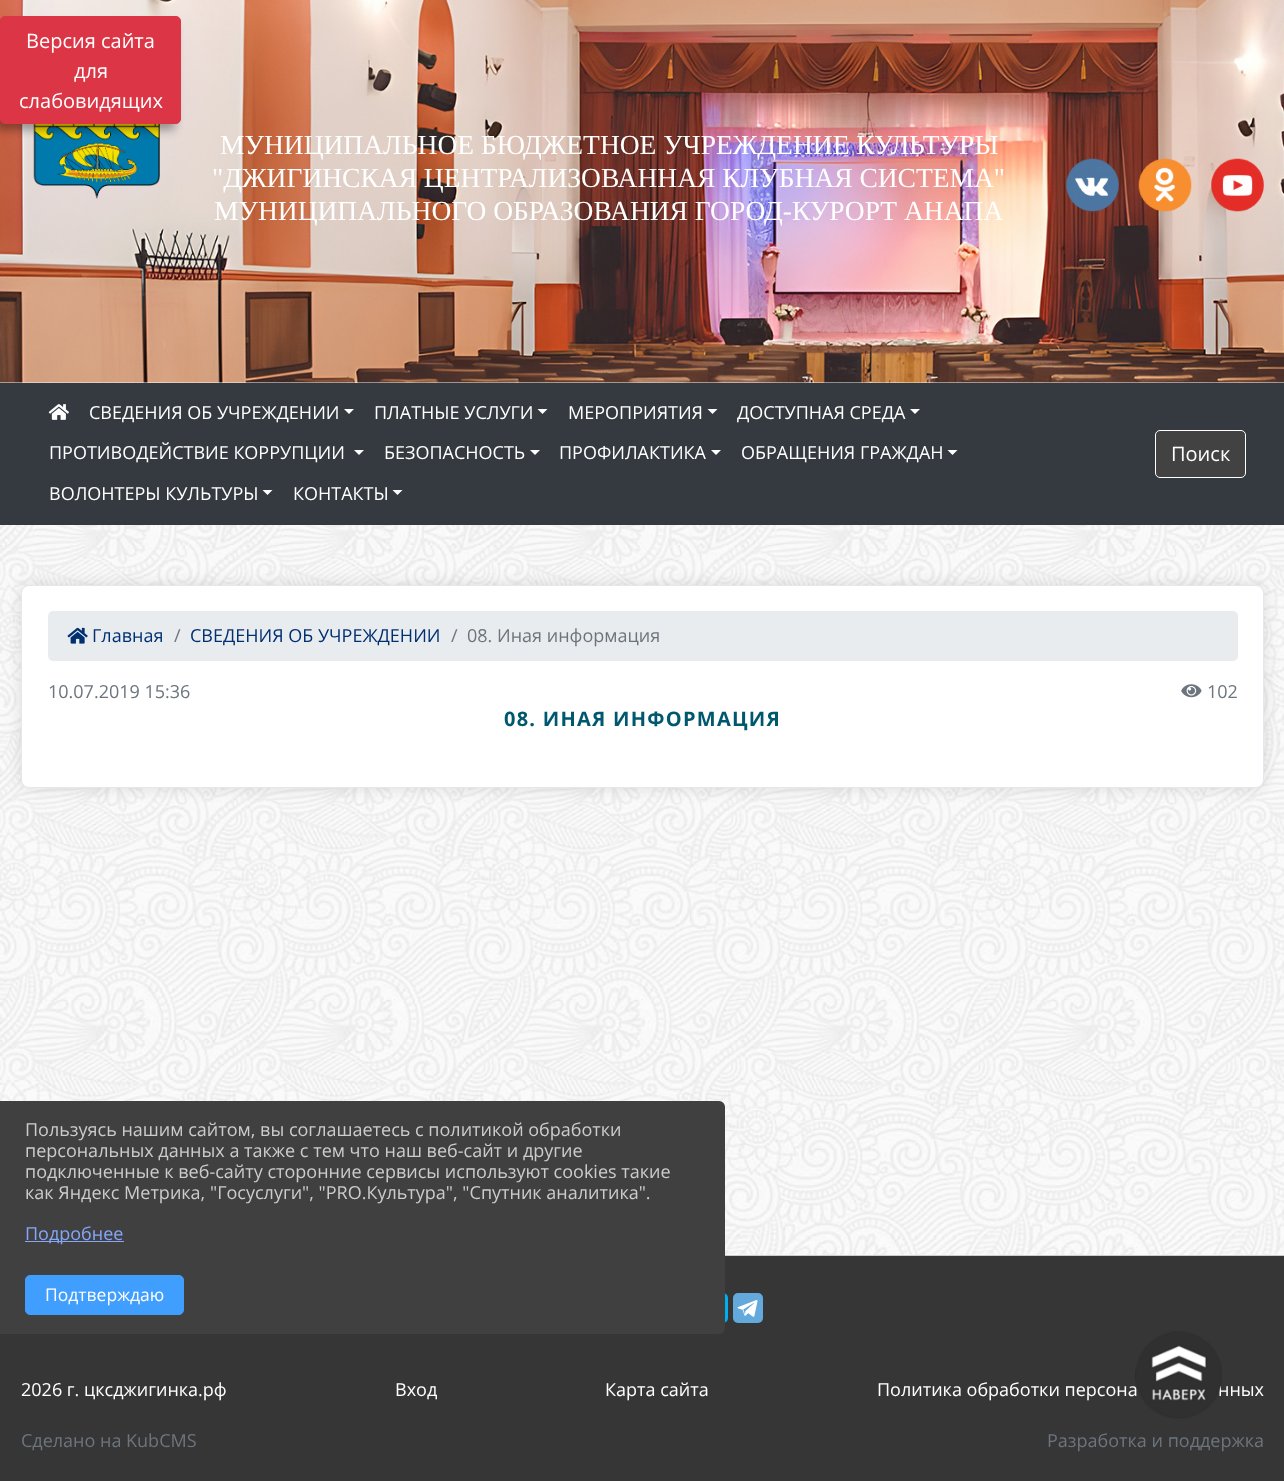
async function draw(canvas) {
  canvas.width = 1284;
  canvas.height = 1481;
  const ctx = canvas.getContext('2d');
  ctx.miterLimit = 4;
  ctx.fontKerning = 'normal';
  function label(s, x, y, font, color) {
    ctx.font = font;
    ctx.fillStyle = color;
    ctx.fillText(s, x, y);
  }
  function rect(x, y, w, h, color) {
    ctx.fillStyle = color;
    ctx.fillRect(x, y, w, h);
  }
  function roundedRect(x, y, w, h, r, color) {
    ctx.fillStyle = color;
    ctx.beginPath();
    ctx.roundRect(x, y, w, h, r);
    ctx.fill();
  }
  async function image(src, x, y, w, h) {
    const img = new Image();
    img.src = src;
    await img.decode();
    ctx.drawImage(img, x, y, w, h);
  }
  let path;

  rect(0, 0, 1284, 1481, '#fff');
  await image('assets/img1.png', 0, 382, 1284, 873);
  await image('assets/img2.png', 0, 0, 1284, 383);
  await image('assets/img3.png', 33, 124, 127, 75);
  ctx.fillStyle = '#00000059';
  ctx.filter = 'blur(5px)';
  ctx.beginPath();
  ctx.roundRect(-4, 25, 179, 105, 4);
  ctx.fill();
  ctx.filter = 'none';
  ctx.fillStyle = '#dc3545';
  ctx.beginPath();
  ctx.roundRect(0.5, 16.5, 180, 107, 4.5);
  ctx.fill();
  ctx.strokeStyle = '#dc3545';
  ctx.stroke();
  label('Версия сайта', 26, 48, '20px Open Sans', '#fff');
  label('для', 74, 78, '20px Open Sans', '#fff');
  label('слабовидящих', 19, 108, '20px Open Sans', '#fff');
  label('МУНИЦИПАЛЬНОЕ БЮДЖЕТНОЕ УЧРЕЖДЕНИЕ КУЛЬТУРЫ', 220, 154, '27.5px Liberation Serif', '#fff');
  label('"ДЖИГИНСКАЯ ЦЕНТРАЛИЗОВАННАЯ КЛУБНАЯ СИСТЕМА"', 212, 187, '27.5px Liberation Serif', '#fff');
  label('МУНИЦИПАЛЬНОГО ОБРАЗОВАНИЯ ГОРОД-КУРОРТ АНАПА', 214, 220, '27.5px Liberation Serif', '#fff');
  await image('assets/img4.png', 1066, 158, 53, 54);
  await image('assets/img5.png', 1138, 158, 54, 54);
  await image('assets/img6.png', 1211, 158, 53, 54);
  rect(0, 383, 1284, 142, '#343a40');
  await image('assets/img7.png', 48, 404, 21, 16);
  label('СВЕДЕНИЯ ОБ УЧРЕЖДЕНИИ', 89, 419, '18px Open Sans', '#fff');
  path = new Path2D('M344 409H354L349 414Z');
  ctx.fill(path);
  label('ПЛАТНЫЕ УСЛУГИ', 374, 419, '18px Open Sans', '#fff');
  path = new Path2D('M537.5 409H547.5L542.5 414Z');
  ctx.fill(path);
  label('МЕРОПРИЯТИЯ', 568, 419, '18px Open Sans', '#fff');
  path = new Path2D('M707.5 409H717.5L712.5 414Z');
  ctx.fill(path);
  label('ДОСТУПНАЯ СРЕДА', 737, 419, '18px Open Sans', '#fff');
  path = new Path2D('M910 409H920L915 414Z');
  ctx.fill(path);
  label('ПРОТИВОДЕЙСТВИЕ КОРРУПЦИИ', 49, 459, '18px Open Sans', '#fff');
  path = new Path2D('M354 450H364L359 455Z');
  ctx.fill(path);
  label('БЕЗОПАСНОСТЬ', 384, 459, '18px Open Sans', '#fff');
  path = new Path2D('M530 450H540L535 455Z');
  ctx.fill(path);
  label('ПРОФИЛАКТИКА', 559, 459, '18px Open Sans', '#fff');
  path = new Path2D('M711 450H721L716 455Z');
  ctx.fill(path);
  label('ОБРАЩЕНИЯ ГРАЖДАН', 741, 459, '18px Open Sans', '#fff');
  path = new Path2D('M947.5 450H957.5L952.5 455Z');
  ctx.fill(path);
  label('ВОЛОНТЕРЫ КУЛЬТУРЫ', 49, 500, '18px Open Sans', '#fff');
  path = new Path2D('M262.5 490H272.5L267.5 495Z');
  ctx.fill(path);
  label('КОНТАКТЫ', 293, 500, '18px Open Sans', '#fff');
  path = new Path2D('M392.5 490H402.5L397.5 495Z');
  ctx.fill(path);
  ctx.fillStyle = '#424242';
  ctx.beginPath();
  ctx.roundRect(1155.5, 430.5, 90, 47, 4.5);
  ctx.fill();
  ctx.strokeStyle = '#fff';
  ctx.stroke();
  label('Поиск', 1171, 461, '20px Open Sans', '#fff');
  ctx.fillStyle = '#0000001f';
  ctx.filter = 'blur(7.5px)';
  ctx.beginPath();
  ctx.roundRect(21, 585, 1243, 203, 8);
  ctx.fill();
  ctx.filter = 'none';
  ctx.fillStyle = '#fff';
  ctx.beginPath();
  ctx.roundRect(21.5, 585.5, 1242, 202, 7.5);
  ctx.fill();
  ctx.strokeStyle = '#e4e7ed';
  ctx.stroke();
  roundedRect(48, 611, 1190, 50, 5, '#e9ecef');
  await image('assets/img8.png', 67, 627, 21, 17);
  label('Главная', 92, 642, '18px Open Sans', '#002f72');
  label('/', 174, 642, '18px Open Sans', '#6c757d');
  label('СВЕДЕНИЯ ОБ УЧРЕЖДЕНИИ', 190, 642, '18px Open Sans', '#002f72');
  label('/', 451, 642, '18px Open Sans', '#6c757d');
  label('08. Иная информация', 467, 642, '18px Open Sans', '#6c757d');
  label('10.07.2019 15:36', 48, 698, '18px Open Sans', '#6c757d');
  await image('assets/img9.png', 1181, 684, 21, 14);
  label('102', 1207, 698, '18px Open Sans', '#6c757d');
  ctx.letterSpacing = '1.25px';
  label('08. ИНАЯ ИНФОРМАЦИЯ', 504, 726, 'bold 20px Open Sans', '#00586f');
  rect(0, 1256, 1284, 225, '#373636');
  rect(725, 1255, 559, 1, '#ccc');
  roundedRect(698, 1293, 30, 30, 5, '#00aff0');
  roundedRect(733, 1293, 30, 30, 5, '#64a9dc');
  await image('assets/img10.png', 737, 1300, 21, 17);
  ctx.letterSpacing = '0px';
  label('Политика обработки персона', 877, 1396, '18px Open Sans', '#fff');
  label('нных', 1218, 1396, '18px Open Sans', '#fff');
  await image('assets/img11.png', 1135, 1331, 87, 88);
  label('2026 г. цксджигинка.рф', 21, 1396, '18px Open Sans', '#fff');
  label('Вход', 395, 1396, '18px Open Sans', '#fff');
  label('Карта сайта', 605, 1396, '18px Open Sans', '#fff');
  label('Сделано на KubCMS', 21, 1447, '18px Open Sans', '#6c757d');
  label('Разработка и поддержка', 1047, 1447, '18px Open Sans', '#6c757d');
  ctx.fillStyle = '#404040';
  ctx.beginPath();
  ctx.roundRect(0, 1101, 725, 233, [0, 6, 6, 0]);
  ctx.fill();
  label('Пользуясь нашим сайтом, вы соглашаетесь с политикой обработки', 25, 1136, '18px Open Sans', '#ccc');
  label('персональных данных а также с тем что наш веб-сайт и другие', 25, 1157, '18px Open Sans', '#ccc');
  label('подключенные к веб-сайту сторонние сервисы используют cookies такие', 25, 1178, '18px Open Sans', '#ccc');
  label('как Яндекс Метрика, "Госуслуги", "PRO.Культура", "Спутник аналитика".', 25, 1199, '18px Open Sans', '#ccc');
  rect(25, 1241, 99, 1, '#85a6f9');
  label('Подробнее', 25, 1240, '18px Open Sans', '#85a6f9');
  ctx.fillStyle = '#409eff';
  ctx.beginPath();
  ctx.roundRect(25.5, 1275.5, 158, 39, 4.5);
  ctx.fill();
  ctx.strokeStyle = '#409eff';
  ctx.stroke();
  label('Подтверждаю', 45, 1301, '17.5px Open Sans', '#fff');
}

draw(document.querySelector('canvas'));
